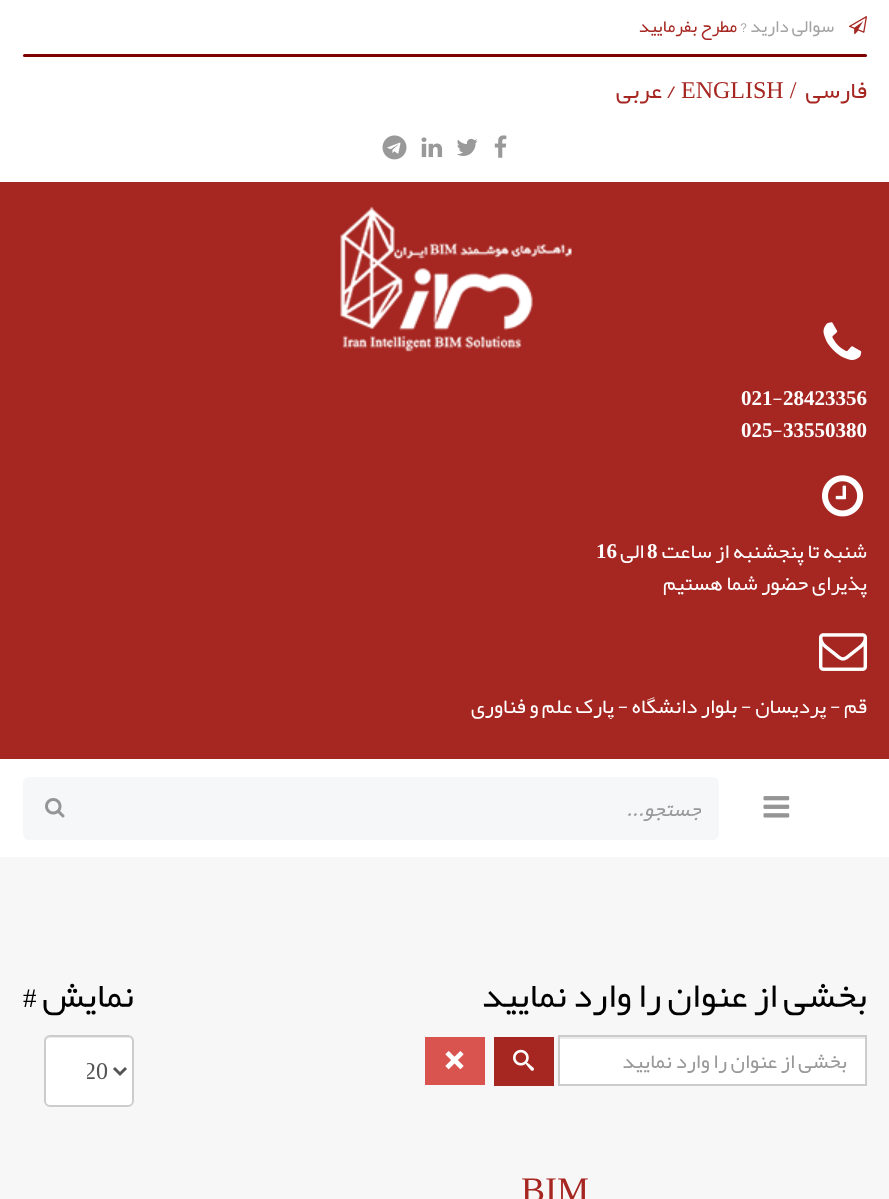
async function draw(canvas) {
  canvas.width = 889;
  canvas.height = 1199;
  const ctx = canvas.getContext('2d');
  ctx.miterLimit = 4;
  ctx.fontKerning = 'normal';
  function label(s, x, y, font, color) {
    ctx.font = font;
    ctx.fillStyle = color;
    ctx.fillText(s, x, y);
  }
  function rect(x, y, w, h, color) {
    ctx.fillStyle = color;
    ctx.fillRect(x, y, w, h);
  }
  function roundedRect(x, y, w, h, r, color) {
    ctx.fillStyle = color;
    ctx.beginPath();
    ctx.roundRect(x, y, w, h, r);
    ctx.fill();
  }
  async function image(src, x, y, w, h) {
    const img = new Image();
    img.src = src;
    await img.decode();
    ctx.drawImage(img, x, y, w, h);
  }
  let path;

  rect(0, 0, 889, 1199, '#f7f7f7');
  rect(0, 0, 889, 182, '#fff');
  await image('assets/img1.png', 849, 16, 18, 18);
  ctx.direction = 'rtl';
  label('سوالی دارید ?', 834, 32, '18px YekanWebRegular', '#a3a3a3');
  label('مطرح بفرمایید', 737, 32, '18px YekanWebRegular', '#a62621');
  roundedRect(23, 54, 844, 3, 1.5, '#810000');
  label('فارسی', 867, 98, '24px YekanWebRegular', '#a62621');
  ctx.direction = 'ltr';
  label('ENGLISH /', 681, 98, '24px Liberation Serif', '#a62621');
  label('/', 666, 98, '24px YekanWebRegular', '#a62621');
  ctx.direction = 'rtl';
  label('عربی', 662, 98, '24px YekanWebRegular', '#a62621');
  await image('assets/img2.png', 494, 135, 13, 23);
  await image('assets/img3.png', 456, 138, 22, 18);
  await image('assets/img4.png', 421, 137, 22, 21);
  await image('assets/img5.png', 382, 135, 25, 25);
  rect(0, 182, 889, 577, '#a62621');
  await image('assets/img6.png', 340, 206, 232, 146);
  await image('assets/img7.png', 823, 322, 39, 38);
  ctx.direction = 'ltr';
  label('28423356', 783, 405, 'bold 21px Liberation Serif', '#fff');
  label('-', 772, 405, '21px YekanWebRegular', '#fff');
  label('021', 741, 405, 'bold 21px Liberation Serif', '#fff');
  label('33550380', 783, 437, 'bold 21px Liberation Serif', '#fff');
  label('-', 772, 437, '21px YekanWebRegular', '#fff');
  label('025', 741, 437, 'bold 21px Liberation Serif', '#fff');
  await image('assets/img8.png', 822, 475, 42, 42);
  ctx.direction = 'rtl';
  label('شنبه تا پنجشنبه از ساعت', 867, 558, '21px YekanWebRegular', '#fff');
  ctx.direction = 'ltr';
  label('8', 647, 558, 'bold 21px Liberation Serif', '#fff');
  ctx.direction = 'rtl';
  label('الی', 644, 558, '21px YekanWebRegular', '#fff');
  ctx.direction = 'ltr';
  label('16', 596, 558, 'bold 21px Liberation Serif', '#fff');
  ctx.direction = 'rtl';
  label('پذیرای حضور شما هستیم', 867, 590, '21px YekanWebRegular', '#fff');
  await image('assets/img9.png', 819, 633, 48, 38);
  ctx.save();
  ctx.beginPath();
  ctx.rect(408, 693, 459, 26);
  ctx.clip();
  label('قم - پردیسان - بلوار دانشگاه - پارک علم و فناوری', 867, 713, '21px YekanWebRegular', '#fff');
  ctx.restore();
  rect(0, 759, 889, 98, '#fff');
  await image('assets/img10.png', 763, 796, 27, 22);
  roundedRect(23, 777, 696, 63, 6, '#f5f7f8');
  ctx.save();
  ctx.beginPath();
  ctx.rect(53, 788, 648, 42);
  ctx.clip();
  label('جستجو...', 701, 816, 'italic 21px YekanWebRegular', '#999');
  ctx.restore();
  await image('assets/img11.png', 45, 798, 20, 20);
  label('بخشی از عنوان را وارد نمایید', 867, 1007, '36px YekanWebRegular', '#000');
  rect(560, 1039, 305, 45, '#fff');
  rect(560, 1037, 306, 2, '#ececec');
  ctx.strokeStyle = '#ccc';
  ctx.lineWidth = 2;
  ctx.strokeRect(559, 1036, 307, 49);
  label('بخشی از عنوان را وارد نمایید', 847, 1068, '21px YekanWebRegular', '#999');
  rect(494, 1037, 60, 49, '#a62621');
  await image('assets/img12.png', 513, 1049, 21, 22);
  rect(425, 1037, 60, 48, '#d9534f');
  await image('assets/img13.png', 445, 1051, 19, 19);
  label('نمایش #', 134, 1007, '36px YekanWebRegular', '#000');
  roundedRect(44, 1035, 90, 72, 6, '#fff');
  ctx.fillStyle = '#ececec';
  path = new Path2D('M50 1038H128C130 1038 132 1040 132 1042C132 1039 130 1037 127 1037H50C47 1037 45 1039 45 1042C45 1040 47 1038 50 1038Z');
  ctx.fill(path);
  ctx.beginPath();
  ctx.roundRect(45, 1036, 88, 70, 5);
  ctx.stroke();
  path = new Path2D('M114 1068L120 1074L126 1068');
  ctx.strokeStyle = '#555';
  ctx.lineWidth = 3;
  ctx.stroke(path);
  ctx.save();
  ctx.beginPath();
  ctx.rect(87, 1046, 21, 51);
  ctx.clip();
  ctx.direction = 'ltr';
  label('20', 84, 1079, '24px Liberation Serif', '#555');
  ctx.restore();
  ctx.direction = 'ltr';
  label('BIM', 521, 1202, '36px Liberation Serif', '#a62621');
}

draw(document.querySelector('canvas'));
